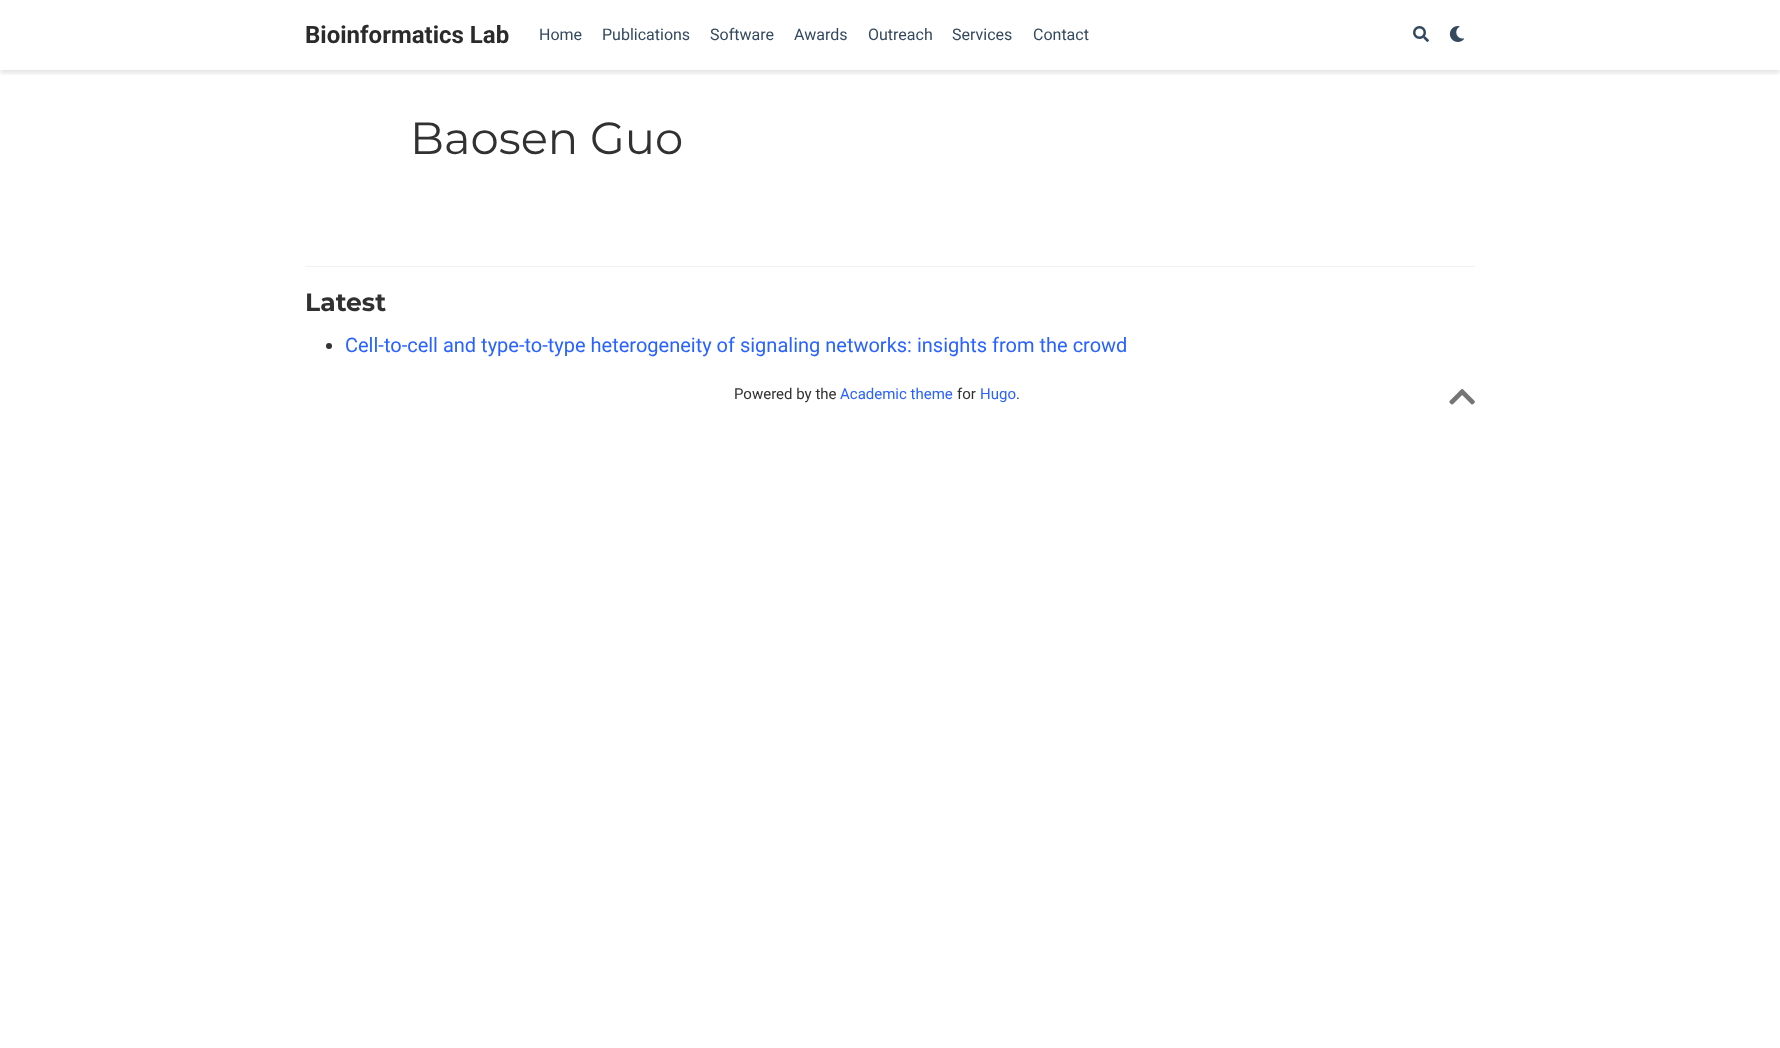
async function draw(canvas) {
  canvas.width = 1780;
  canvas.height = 1048;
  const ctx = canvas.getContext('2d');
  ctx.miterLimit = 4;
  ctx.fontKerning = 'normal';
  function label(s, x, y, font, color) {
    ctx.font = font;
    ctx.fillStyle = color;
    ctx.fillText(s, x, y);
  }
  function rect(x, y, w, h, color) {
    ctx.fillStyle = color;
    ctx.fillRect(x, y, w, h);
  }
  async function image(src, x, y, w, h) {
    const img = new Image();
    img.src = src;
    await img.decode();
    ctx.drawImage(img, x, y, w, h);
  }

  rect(0, 0, 1780, 1048, '#fff');
  ctx.save();
  ctx.beginPath();
  ctx.rect(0, 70, 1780, 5);
  ctx.clip();
  ctx.fillStyle = '#0000001c';
  ctx.filter = 'blur(2.5px)';
  ctx.beginPath();
  ctx.rect(0, 3, 1780, 70);
  ctx.fill();
  ctx.filter = 'none';
  ctx.restore();
  label('Bioinformatics Lab', 305, 43, 'bold 24px Roboto', '#2b2b2b');
  label('Home', 539, 40, '16px Roboto', '#34495e');
  label('Publications', 602, 40, '16px Roboto', '#34495e');
  label('Software', 710, 40, '16px Roboto', '#34495e');
  label('Awards', 794, 40, '16px Roboto', '#34495e');
  label('Outreach', 868, 40, '16px Roboto', '#34495e');
  label('Services', 952, 40, '16px Roboto', '#34495e');
  label('Contact', 1033, 40, '16px Roboto', '#34495e');
  await image('assets/img1.png', 1413, 26, 16, 16);
  await image('assets/img2.png', 1449, 26, 16, 16);
  label('Baosen Guo', 410, 154, '45px Montserrat', '#313131');
  rect(305, 266, 1170, 1, '#f2f2f2');
  label('Latest', 305, 311, 'bold 25px Montserrat', '#313131');
  ctx.fillStyle = '#333';
  ctx.beginPath();
  ctx.arc(329, 346, 3, 0, 2 * Math.PI);
  ctx.fill();
  label('Cell-to-cell and type-to-type heterogeneity of signaling networks: insights from the crowd', 345, 352, '20px Roboto', '#2962ff');
  label('Powered by the', 734, 399, '15px Roboto', '#313131');
  label('Academic theme', 840, 399, '15px Roboto', '#2962ff');
  label('for', 957, 399, '15px Roboto', '#313131');
  label('Hugo', 980, 399, '15px Roboto', '#2962ff');
  label('.', 1016, 399, '15px Roboto', '#313131');
  await image('assets/img3.png', 1449, 389, 26, 16);
}

draw(document.querySelector('canvas'));
